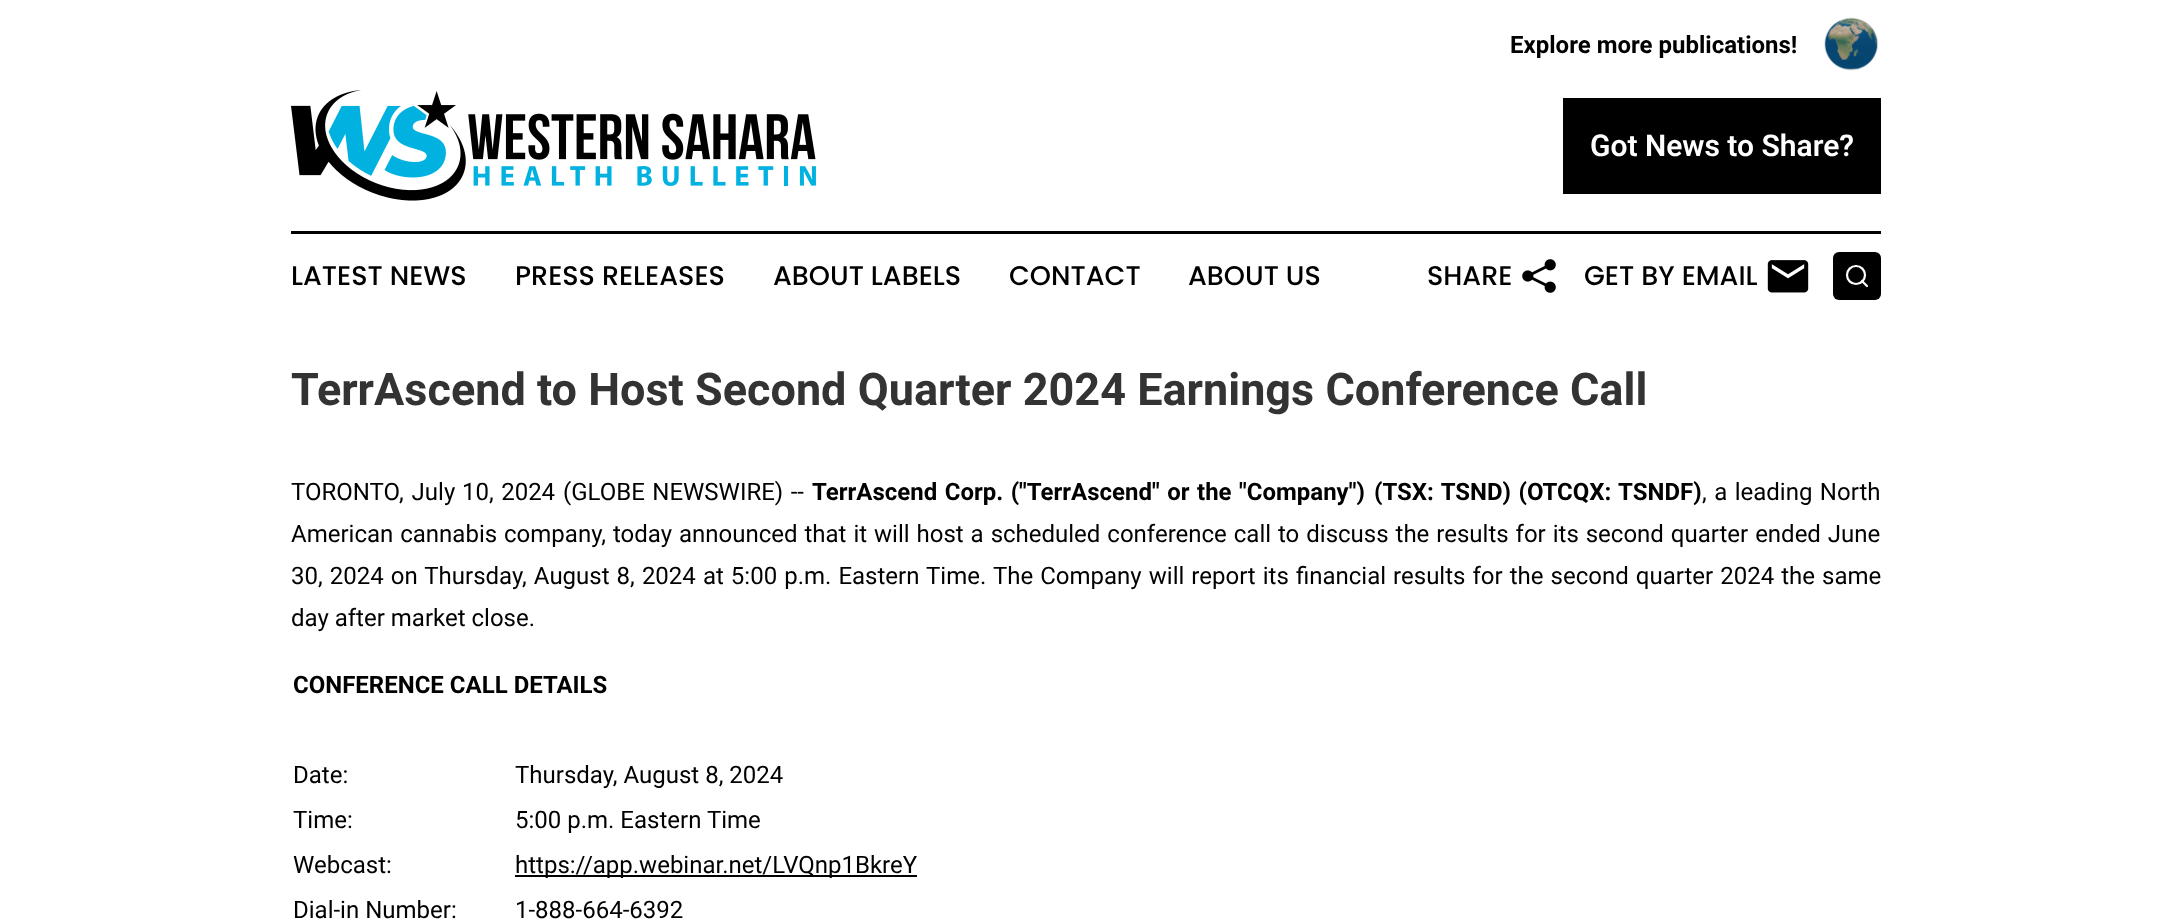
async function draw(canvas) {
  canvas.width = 2171;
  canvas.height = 924;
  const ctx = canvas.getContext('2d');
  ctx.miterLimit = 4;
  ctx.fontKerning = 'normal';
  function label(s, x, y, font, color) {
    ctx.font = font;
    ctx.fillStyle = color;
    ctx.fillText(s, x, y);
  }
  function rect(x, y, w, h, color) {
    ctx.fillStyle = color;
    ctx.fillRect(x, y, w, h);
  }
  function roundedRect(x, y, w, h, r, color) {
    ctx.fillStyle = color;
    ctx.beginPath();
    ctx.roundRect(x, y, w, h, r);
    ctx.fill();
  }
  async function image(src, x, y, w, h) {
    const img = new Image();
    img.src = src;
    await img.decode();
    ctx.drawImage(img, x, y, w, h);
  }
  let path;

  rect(0, 0, 2171, 924, '#fff');
  label('Explore more publications!', 1510, 53, 'bold 24px Roboto', '#000');
  await image('assets/img1.png', 1824, 17, 55, 54);
  await image('assets/img2.png', 291, 90, 525, 111);
  rect(1563, 98, 318, 96, '#000');
  label('Got News to Share?', 1590, 156, '600 30px Roboto', '#fff');
  rect(291, 231, 1590, 3, '#000');
  label('LATEST NEWS', 291, 285, '500 27px Poppins', '#000');
  label('PRESS RELEASES', 515, 285, '500 27px Poppins', '#000');
  label('ABOUT LABELS', 773, 285, '500 27px Poppins', '#000');
  label('CONTACT', 1009, 285, '500 27px Poppins', '#000');
  label('ABOUT US', 1188, 285, '500 27px Poppins', '#000');
  label('SHARE', 1427, 285, '500 27px Poppins', '#000');
  await image('assets/img3.png', 1522, 259, 34, 34);
  label('GET BY EMAIL', 1584, 285, '500 27px Poppins', '#000');
  await image('assets/img4.png', 1767, 260, 42, 33);
  roundedRect(1833, 252, 48, 48, 6, '#000');
  ctx.beginPath();
  ctx.arc(1856, 275, 9, 0, 2 * Math.PI);
  ctx.strokeStyle = '#fff';
  ctx.lineWidth = 2.2;
  ctx.stroke();
  path = new Path2D('M1867 286L1862 281');
  ctx.lineCap = 'round';
  ctx.lineJoin = 'round';
  ctx.stroke(path);
  label('TerrAscend to Host Second Quarter 2024 Earnings Conference Call', 291, 405, 'bold 45px Roboto', '#333');
  ctx.wordSpacing = '2px';
  label('TORONTO, July', 291, 500, '24px Roboto', '#000');
  ctx.wordSpacing = '1.5px';
  label('10, 2024', 462, 500, '24px Roboto', '#000');
  label('(GLOBE NEWSWIRE) --', 563, 500, '24px Roboto', '#000');
  label('TerrAscend Corp. ("TerrAscend" or the "Company")', 812, 500, 'bold 24px Roboto', '#000');
  label('(TSX: TSND) (OTCQX: TSNDF)', 1374, 500, 'bold 24px Roboto', '#000');
  label(', a leading North', 1702, 500, '24px Roboto', '#000');
  ctx.wordSpacing = '1px';
  label('American cannabis company, today announced that it will host a scheduled conference call to discuss the results for its second quarter ended June', 291, 542, '24px Roboto', '#000');
  ctx.wordSpacing = '1.1px';
  label('30, 2024 on Thursday, August 8, 2024 at 5:00 p.m. Eastern Time. The Company will report its financial results for the second quarter 2024 the same', 291, 584, '24px Roboto', '#000');
  ctx.wordSpacing = '0px';
  label('day after market close.', 291, 626, '24px Roboto', '#000');
  label('CONFERENCE CALL DETAILS', 293, 693, 'bold 24px Roboto', '#000');
  label('Date:', 293, 783, '24px Roboto', '#000');
  label('Thursday, August 8, 2024', 515, 783, '24px Roboto', '#000');
  label('Time:', 293, 828, '24px Roboto', '#000');
  label('5:00 p.m. Eastern Time', 515, 828, '24px Roboto', '#000');
  label('Webcast:', 293, 873, '24px Roboto', '#000');
  rect(515, 875, 402, 2, '#000');
  label('https://app.webinar.net/LVQnp1BkreY', 515, 873, '24px Roboto', '#000');
  label('Dial-in Number:', 293, 918, '24px Roboto', '#000');
  label('1-888-664-6392', 515, 918, '24px Roboto', '#000');
}

draw(document.querySelector('canvas'));
